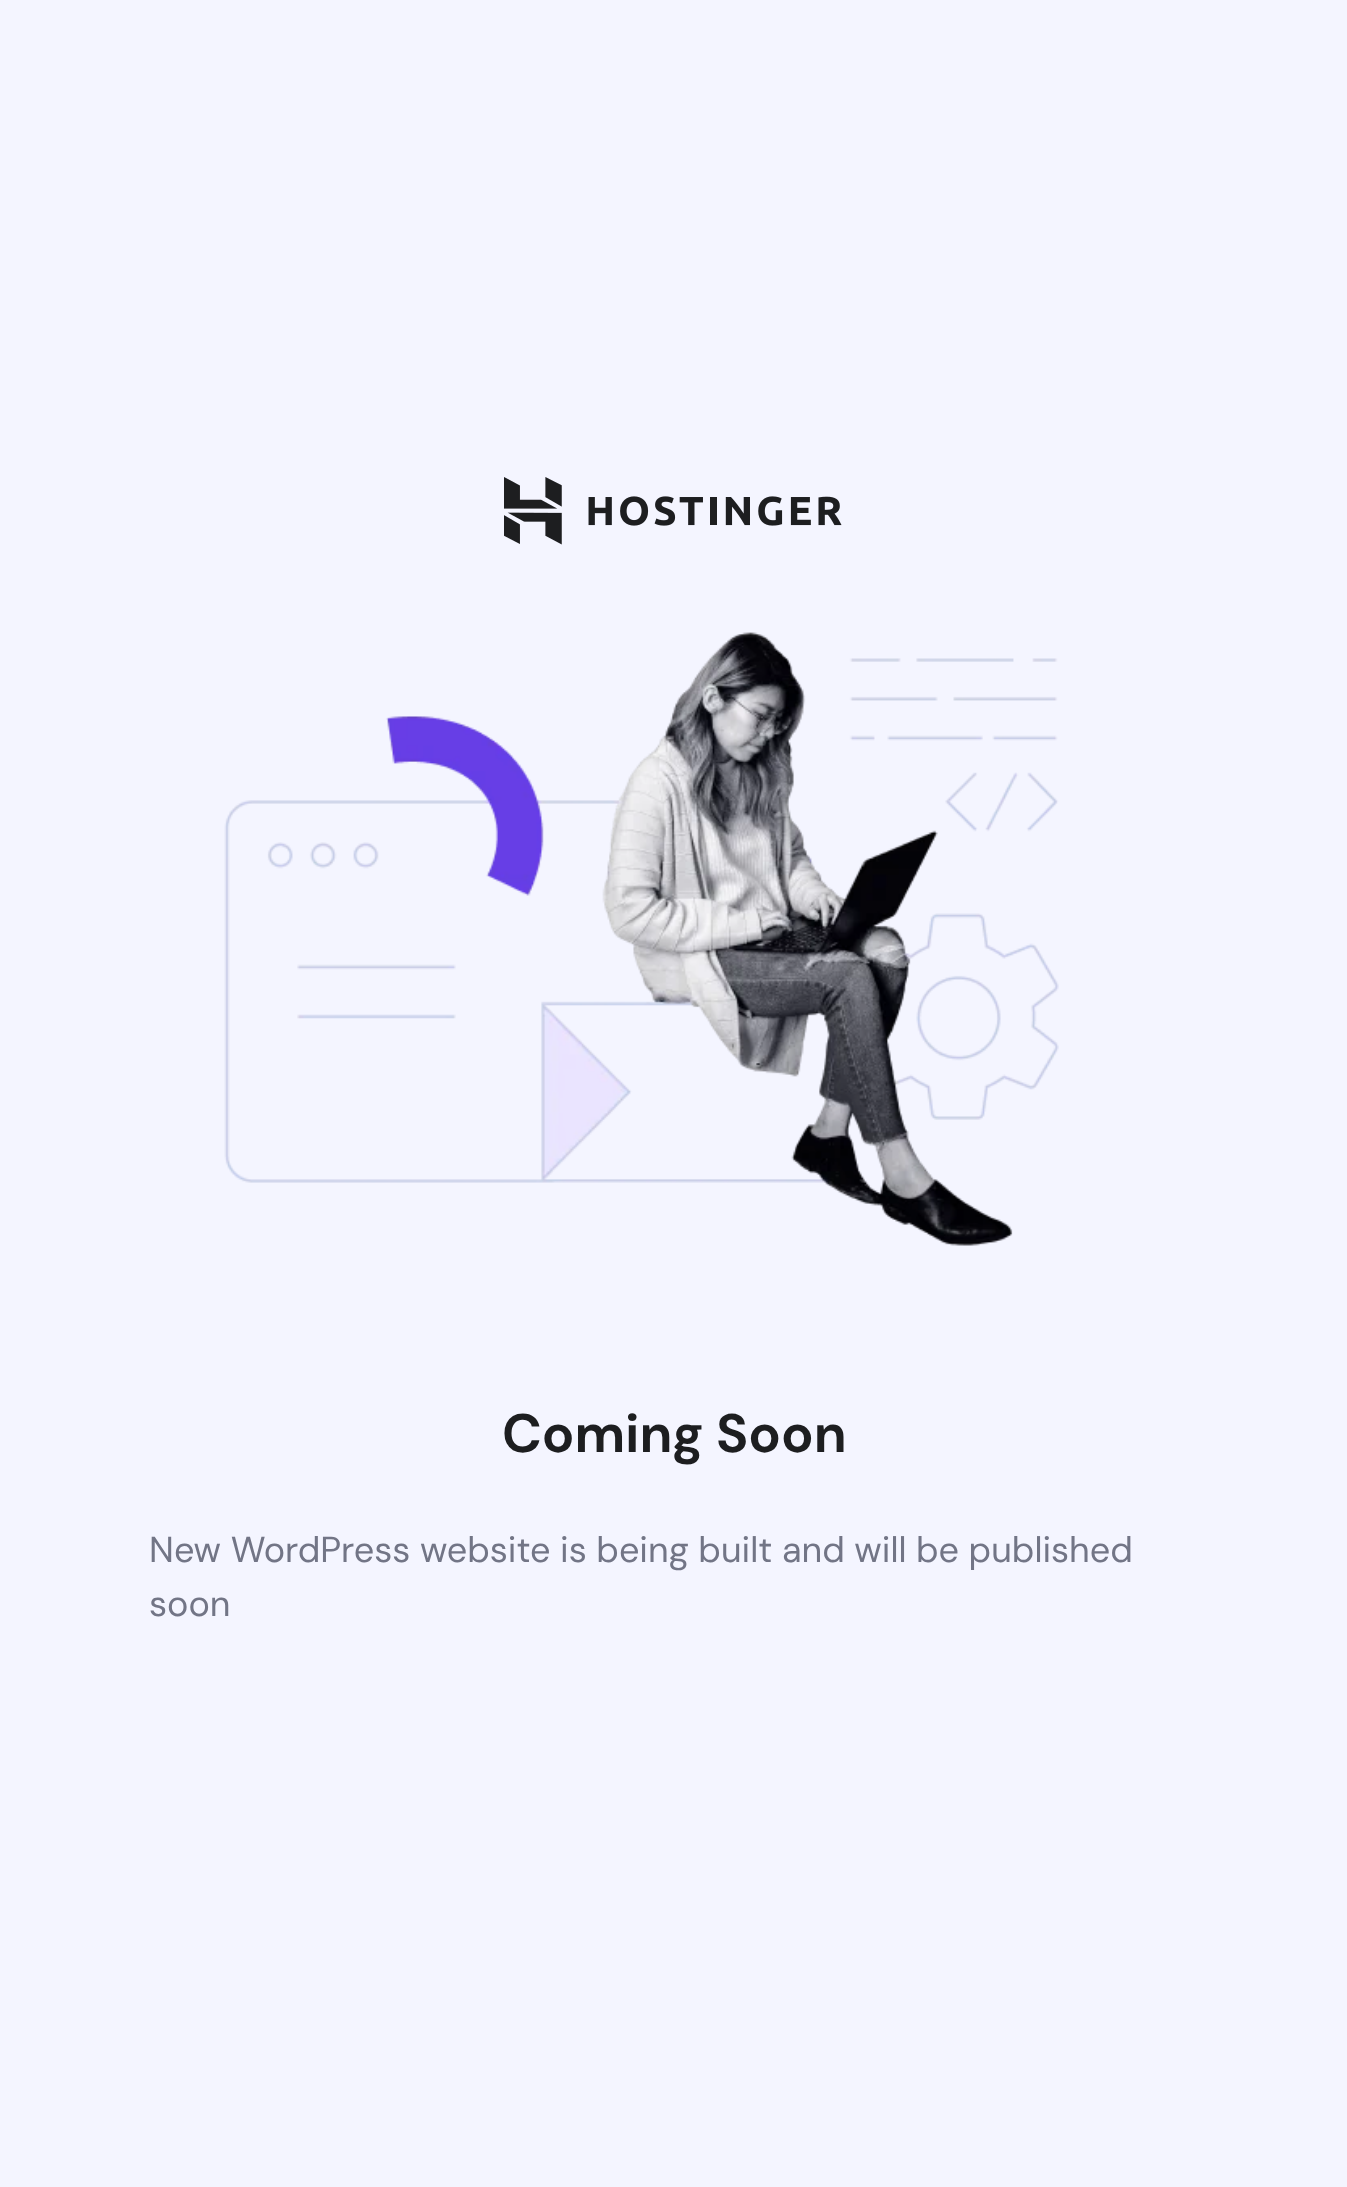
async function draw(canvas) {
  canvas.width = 1347;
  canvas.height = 2187;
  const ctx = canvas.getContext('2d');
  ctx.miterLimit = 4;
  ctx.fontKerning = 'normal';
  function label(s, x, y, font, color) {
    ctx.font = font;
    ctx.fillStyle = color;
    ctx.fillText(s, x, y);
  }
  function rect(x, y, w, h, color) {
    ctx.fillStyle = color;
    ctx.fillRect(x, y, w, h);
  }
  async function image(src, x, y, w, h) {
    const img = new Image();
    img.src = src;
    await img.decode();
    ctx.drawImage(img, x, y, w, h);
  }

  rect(0, 0, 1347, 2187, '#f4f5ff');
  await image('assets/img1.png', 504, 477, 338, 68);
  await image('assets/img2.png', 224, 632, 835, 614);
  label('Coming Soon', 502, 1452, 'bold 54px DM Sans', '#1d1e20');
  label('New WordPress website is being built and will be published', 149, 1562, '36px DM Sans', '#727586');
  label('soon', 149, 1616, '36px DM Sans', '#727586');
}

draw(document.querySelector('canvas'));
